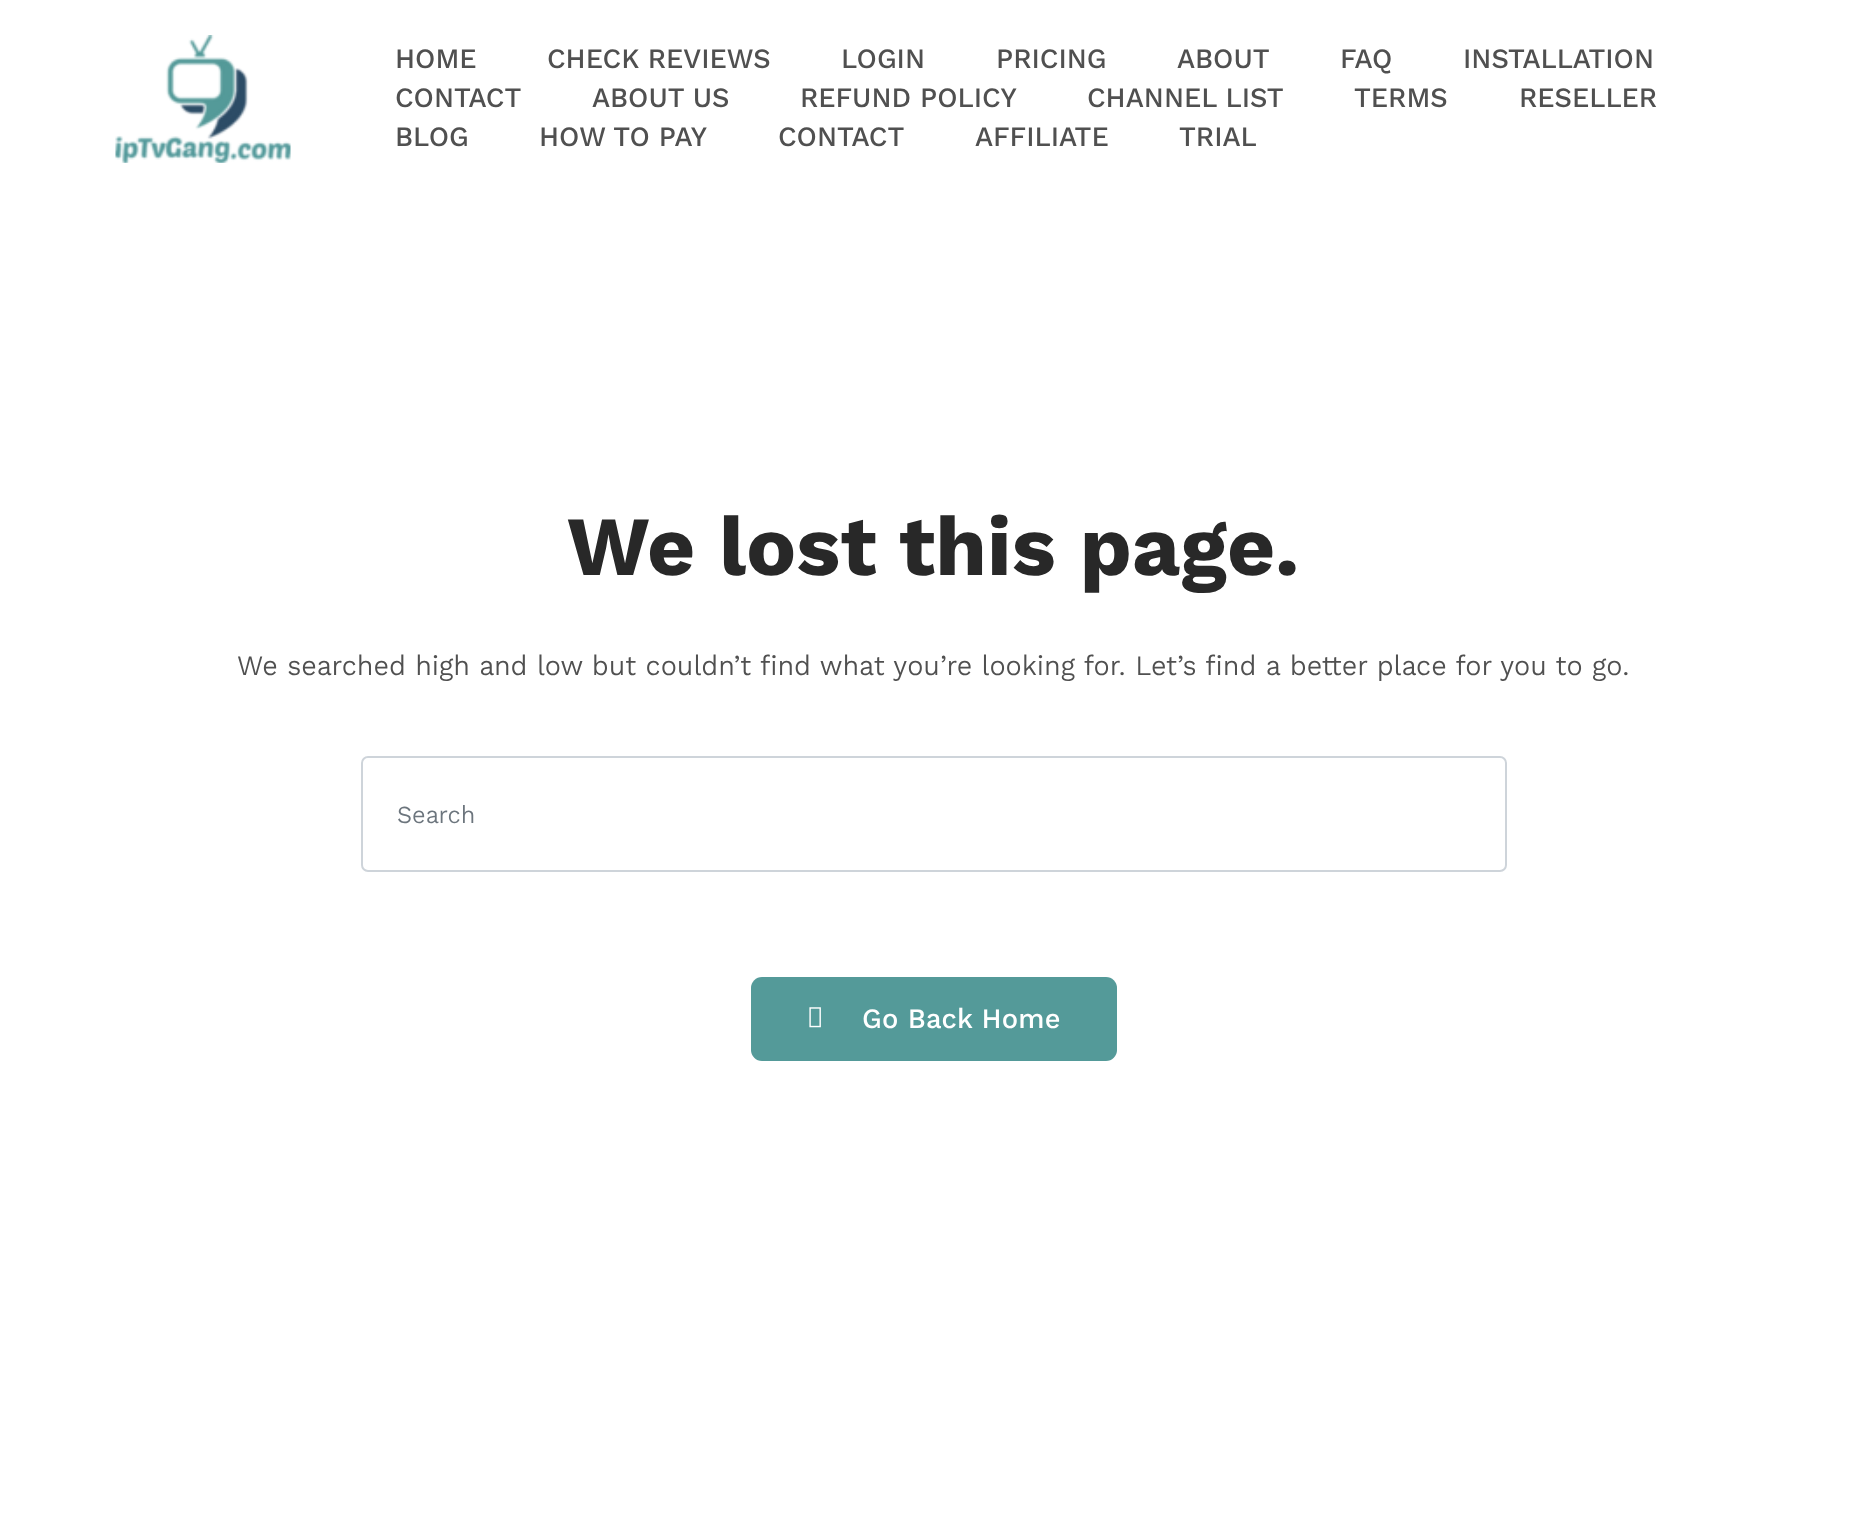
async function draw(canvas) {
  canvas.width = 1867;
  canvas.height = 1532;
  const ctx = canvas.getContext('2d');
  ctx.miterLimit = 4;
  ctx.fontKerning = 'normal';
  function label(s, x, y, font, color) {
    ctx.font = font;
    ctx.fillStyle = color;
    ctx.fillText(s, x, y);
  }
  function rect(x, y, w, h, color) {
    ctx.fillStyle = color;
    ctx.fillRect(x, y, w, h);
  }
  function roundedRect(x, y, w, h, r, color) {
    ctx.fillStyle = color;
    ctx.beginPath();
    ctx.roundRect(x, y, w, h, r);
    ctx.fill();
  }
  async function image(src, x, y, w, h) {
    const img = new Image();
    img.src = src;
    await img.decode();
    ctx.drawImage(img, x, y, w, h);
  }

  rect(0, 0, 1867, 1532, '#fff');
  await image('assets/img1.png', 115, 35, 176, 128);
  label('HOME', 395, 68, '500 28px Kantumruy Pro', '#505050');
  label('CHECK REVIEWS', 547, 68, '500 28px Kantumruy Pro', '#505050');
  label('LOGIN', 841, 68, '500 28px Kantumruy Pro', '#505050');
  label('PRICING', 996, 68, '500 28px Kantumruy Pro', '#505050');
  label('ABOUT', 1177, 68, '500 28px Kantumruy Pro', '#505050');
  label('FAQ', 1340, 68, '500 28px Kantumruy Pro', '#505050');
  label('INSTALLATION', 1463, 68, '500 28px Kantumruy Pro', '#505050');
  label('CONTACT', 395, 107, '500 28px Kantumruy Pro', '#505050');
  label('ABOUT US', 592, 107, '500 28px Kantumruy Pro', '#505050');
  label('REFUND POLICY', 800, 107, '500 28px Kantumruy Pro', '#505050');
  label('CHANNEL LIST', 1087, 107, '500 28px Kantumruy Pro', '#505050');
  label('TERMS', 1354, 107, '500 28px Kantumruy Pro', '#505050');
  label('RESELLER', 1519, 107, '500 28px Kantumruy Pro', '#505050');
  label('BLOG', 395, 146, '500 28px Kantumruy Pro', '#505050');
  label('HOW TO PAY', 539, 146, '500 28px Kantumruy Pro', '#505050');
  label('CONTACT', 778, 146, '500 28px Kantumruy Pro', '#505050');
  label('AFFILIATE', 975, 146, '500 28px Kantumruy Pro', '#505050');
  label('TRIAL', 1179, 146, '500 28px Kantumruy Pro', '#505050');
  label('We lost this page.', 567, 575, 'bold 84px Kantumruy Pro', '#282828');
  label('We searched high and low but couldn’t find what you’re looking for. Let’s find a better place for you to go.', 237, 675, '28px Kantumruy Pro', '#505050');
  ctx.beginPath();
  ctx.roundRect(362, 757, 1144, 114, 6);
  ctx.strokeStyle = '#ced4da';
  ctx.lineWidth = 2;
  ctx.stroke();
  label('Search', 397, 823, '24.5px Kantumruy Pro', '#6c757d');
  roundedRect(751, 977, 366, 84, 11, '#549a99');
  await image('assets/img2.png', 809, 1007, 12, 21);
  ctx.letterSpacing = '0.25px';
  label('Go Back Home', 862, 1028, '500 28px Kantumruy Pro', '#fff');
}

draw(document.querySelector('canvas'));
